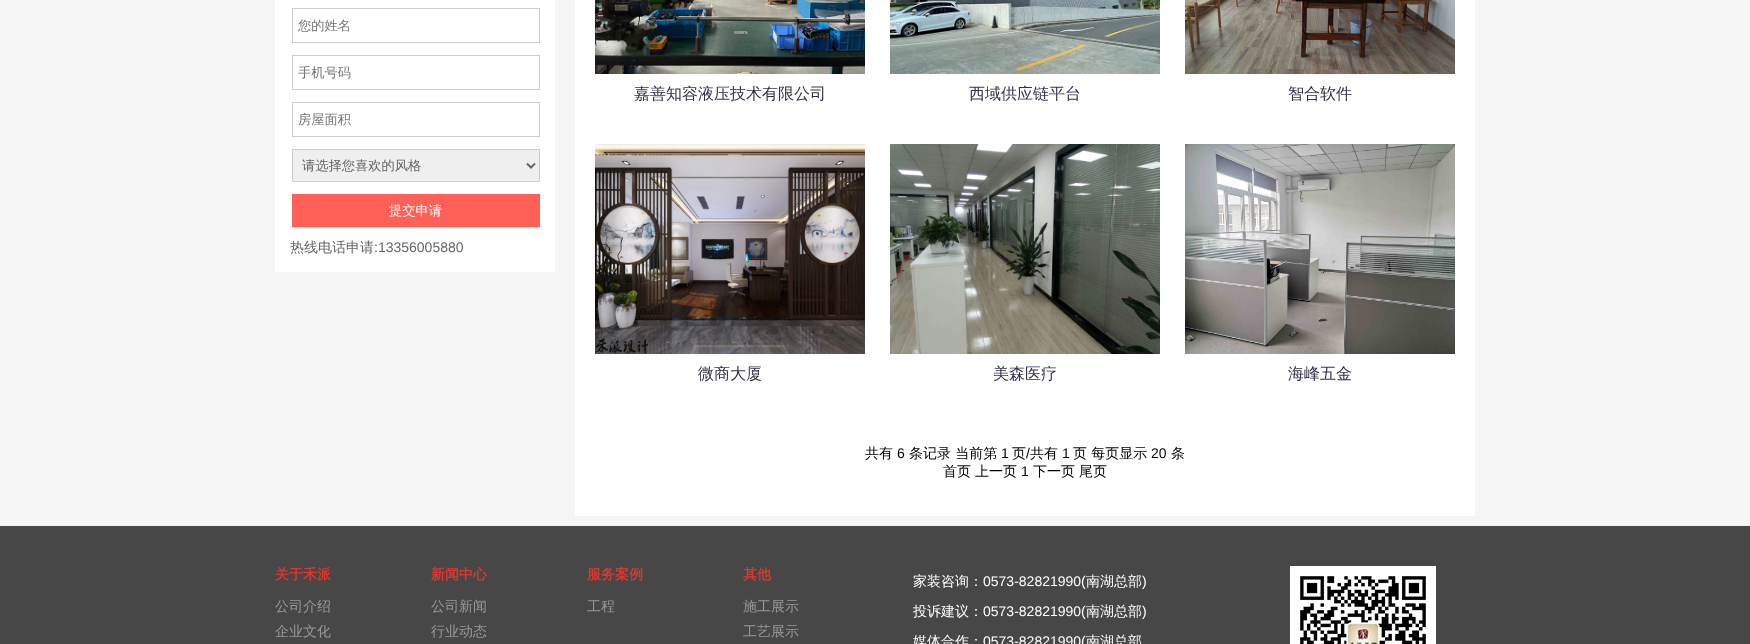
async function draw(canvas) {
  canvas.width = 1750;
  canvas.height = 644;
  const ctx = canvas.getContext('2d');
  ctx.miterLimit = 4;
  ctx.fontKerning = 'normal';
  function label(s, x, y, font, color) {
    ctx.font = font;
    ctx.fillStyle = color;
    ctx.fillText(s, x, y);
  }
  function rect(x, y, w, h, color) {
    ctx.fillStyle = color;
    ctx.fillRect(x, y, w, h);
  }
  async function image(src, x, y, w, h) {
    const img = new Image();
    img.src = src;
    await img.decode();
    ctx.drawImage(img, x, y, w, h);
  }
  let path;

  rect(0, 0, 1750, 644, '#f5f5f5');
  rect(275, 0, 280, 272, '#fff');
  ctx.strokeStyle = '#ccc';
  ctx.strokeRect(292.5, 8.5, 247, 34);
  label('您的姓名', 298, 30, '500 13.25px WenQuanYi Zen Hei', '#757575');
  ctx.strokeRect(292.5, 55.5, 247, 34);
  label('手机号码', 298, 77, '500 13.25px WenQuanYi Zen Hei', '#757575');
  ctx.strokeRect(292.5, 102.5, 247, 34);
  label('房屋面积', 298, 124, '500 13.25px WenQuanYi Zen Hei', '#757575');
  ctx.fillStyle = '#efefef';
  ctx.beginPath();
  ctx.rect(292.5, 149.5, 247, 32);
  ctx.fill();
  ctx.stroke();
  path = new Path2D('M527 163.5L531 167.5L535 163.5');
  ctx.strokeStyle = '#666';
  ctx.lineWidth = 2;
  ctx.stroke(path);
  label('请选择您喜欢的风格', 302, 170, '500 13.25px WenQuanYi Zen Hei', '#666');
  rect(292, 194, 248, 33, '#ff6159');
  label('提交申请', 389, 215, '500 13.25px WenQuanYi Zen Hei', '#fff');
  label('热线电话申请', 290, 252, '500 14px WenQuanYi Zen Hei', '#666');
  label(':13356005880', 374, 252, '14px Liberation Sans', '#666');
  rect(575, 0, 900, 516, '#fff');
  await image('assets/img1.png', 595, 0, 270, 74);
  label('嘉善知容液压技术有限公司', 634, 99, '500 16px WenQuanYi Zen Hei', '#343048');
  await image('assets/img2.png', 890, 0, 270, 74);
  label('西域供应链平台', 969, 99, '500 16px WenQuanYi Zen Hei', '#343048');
  await image('assets/img3.png', 1185, 0, 270, 74);
  label('智合软件', 1288, 99, '500 16px WenQuanYi Zen Hei', '#343048');
  await image('assets/img4.png', 595, 144, 270, 210);
  label('微商大厦', 698, 379, '500 16px WenQuanYi Zen Hei', '#343048');
  await image('assets/img5.png', 890, 144, 270, 210);
  label('美森医疗', 993, 379, '500 16px WenQuanYi Zen Hei', '#343048');
  await image('assets/img6.png', 1185, 144, 270, 210);
  label('海峰五金', 1288, 379, '500 16px WenQuanYi Zen Hei', '#343048');
  label('共有', 865, 458, '500 14px WenQuanYi Zen Hei', '#000');
  label('6', 897, 458, '14px Liberation Sans', '#000');
  label('条记录 当前第', 909, 458, '500 14px WenQuanYi Zen Hei', '#000');
  label('1', 1001, 458, '14px Liberation Sans', '#000');
  label('页', 1012, 458, '500 14px WenQuanYi Zen Hei', '#000');
  label('/', 1026, 458, '14px Liberation Sans', '#000');
  label('共有', 1030, 458, '500 14px WenQuanYi Zen Hei', '#000');
  label('1', 1062, 458, '14px Liberation Sans', '#000');
  label('页 每页显示', 1073, 458, '500 14px WenQuanYi Zen Hei', '#000');
  label('20', 1151, 458, '14px Liberation Sans', '#000');
  label('条', 1171, 458, '500 14px WenQuanYi Zen Hei', '#000');
  label('首页', 943, 476, '500 14px WenQuanYi Zen Hei', '#000');
  label('上一页', 975, 476, '500 14px WenQuanYi Zen Hei', '#000');
  label('1', 1021, 476, '14px Liberation Sans', '#000');
  label('下一页', 1033, 476, '500 14px WenQuanYi Zen Hei', '#000');
  label('尾页', 1079, 476, '500 14px WenQuanYi Zen Hei', '#000');
  rect(0, 526, 1750, 118, '#474747');
  label('关于禾派', 275, 579, 'bold 14px WenQuanYi Zen Hei', '#dc3731');
  label('公司介绍', 275, 611, '500 14px WenQuanYi Zen Hei', '#999');
  label('企业文化', 275, 636, '500 14px WenQuanYi Zen Hei', '#999');
  label('新闻中心', 431, 579, 'bold 14px WenQuanYi Zen Hei', '#dc3731');
  label('公司新闻', 431, 611, '500 14px WenQuanYi Zen Hei', '#999');
  label('行业动态', 431, 636, '500 14px WenQuanYi Zen Hei', '#999');
  label('服务案例', 587, 579, 'bold 14px WenQuanYi Zen Hei', '#dc3731');
  label('工程', 587, 611, '500 14px WenQuanYi Zen Hei', '#999');
  label('其他', 743, 579, 'bold 14px WenQuanYi Zen Hei', '#dc3731');
  label('施工展示', 743, 611, '500 14px WenQuanYi Zen Hei', '#999');
  label('工艺展示', 743, 636, '500 14px WenQuanYi Zen Hei', '#999');
  label('家装咨询：', 913, 586, '500 14px WenQuanYi Zen Hei', '#fff');
  label('0573-82821990(', 983, 586, '14px Liberation Sans', '#fff');
  label('南湖总部', 1086, 586, '500 14px WenQuanYi Zen Hei', '#fff');
  label(')', 1142, 586, '14px Liberation Sans', '#fff');
  label('投诉建议：', 913, 616, '500 14px WenQuanYi Zen Hei', '#fff');
  label('0573-82821990(', 983, 616, '14px Liberation Sans', '#fff');
  label('南湖总部', 1086, 616, '500 14px WenQuanYi Zen Hei', '#fff');
  label(')', 1142, 616, '14px Liberation Sans', '#fff');
  label('媒体合作：', 913, 646, '500 14px WenQuanYi Zen Hei', '#fff');
  label('0573-82821990(', 983, 646, '14px Liberation Sans', '#fff');
  label('南湖总部', 1086, 646, '500 14px WenQuanYi Zen Hei', '#fff');
  await image('assets/img7.png', 1290, 566, 146, 78);
}

draw(document.querySelector('canvas'));
